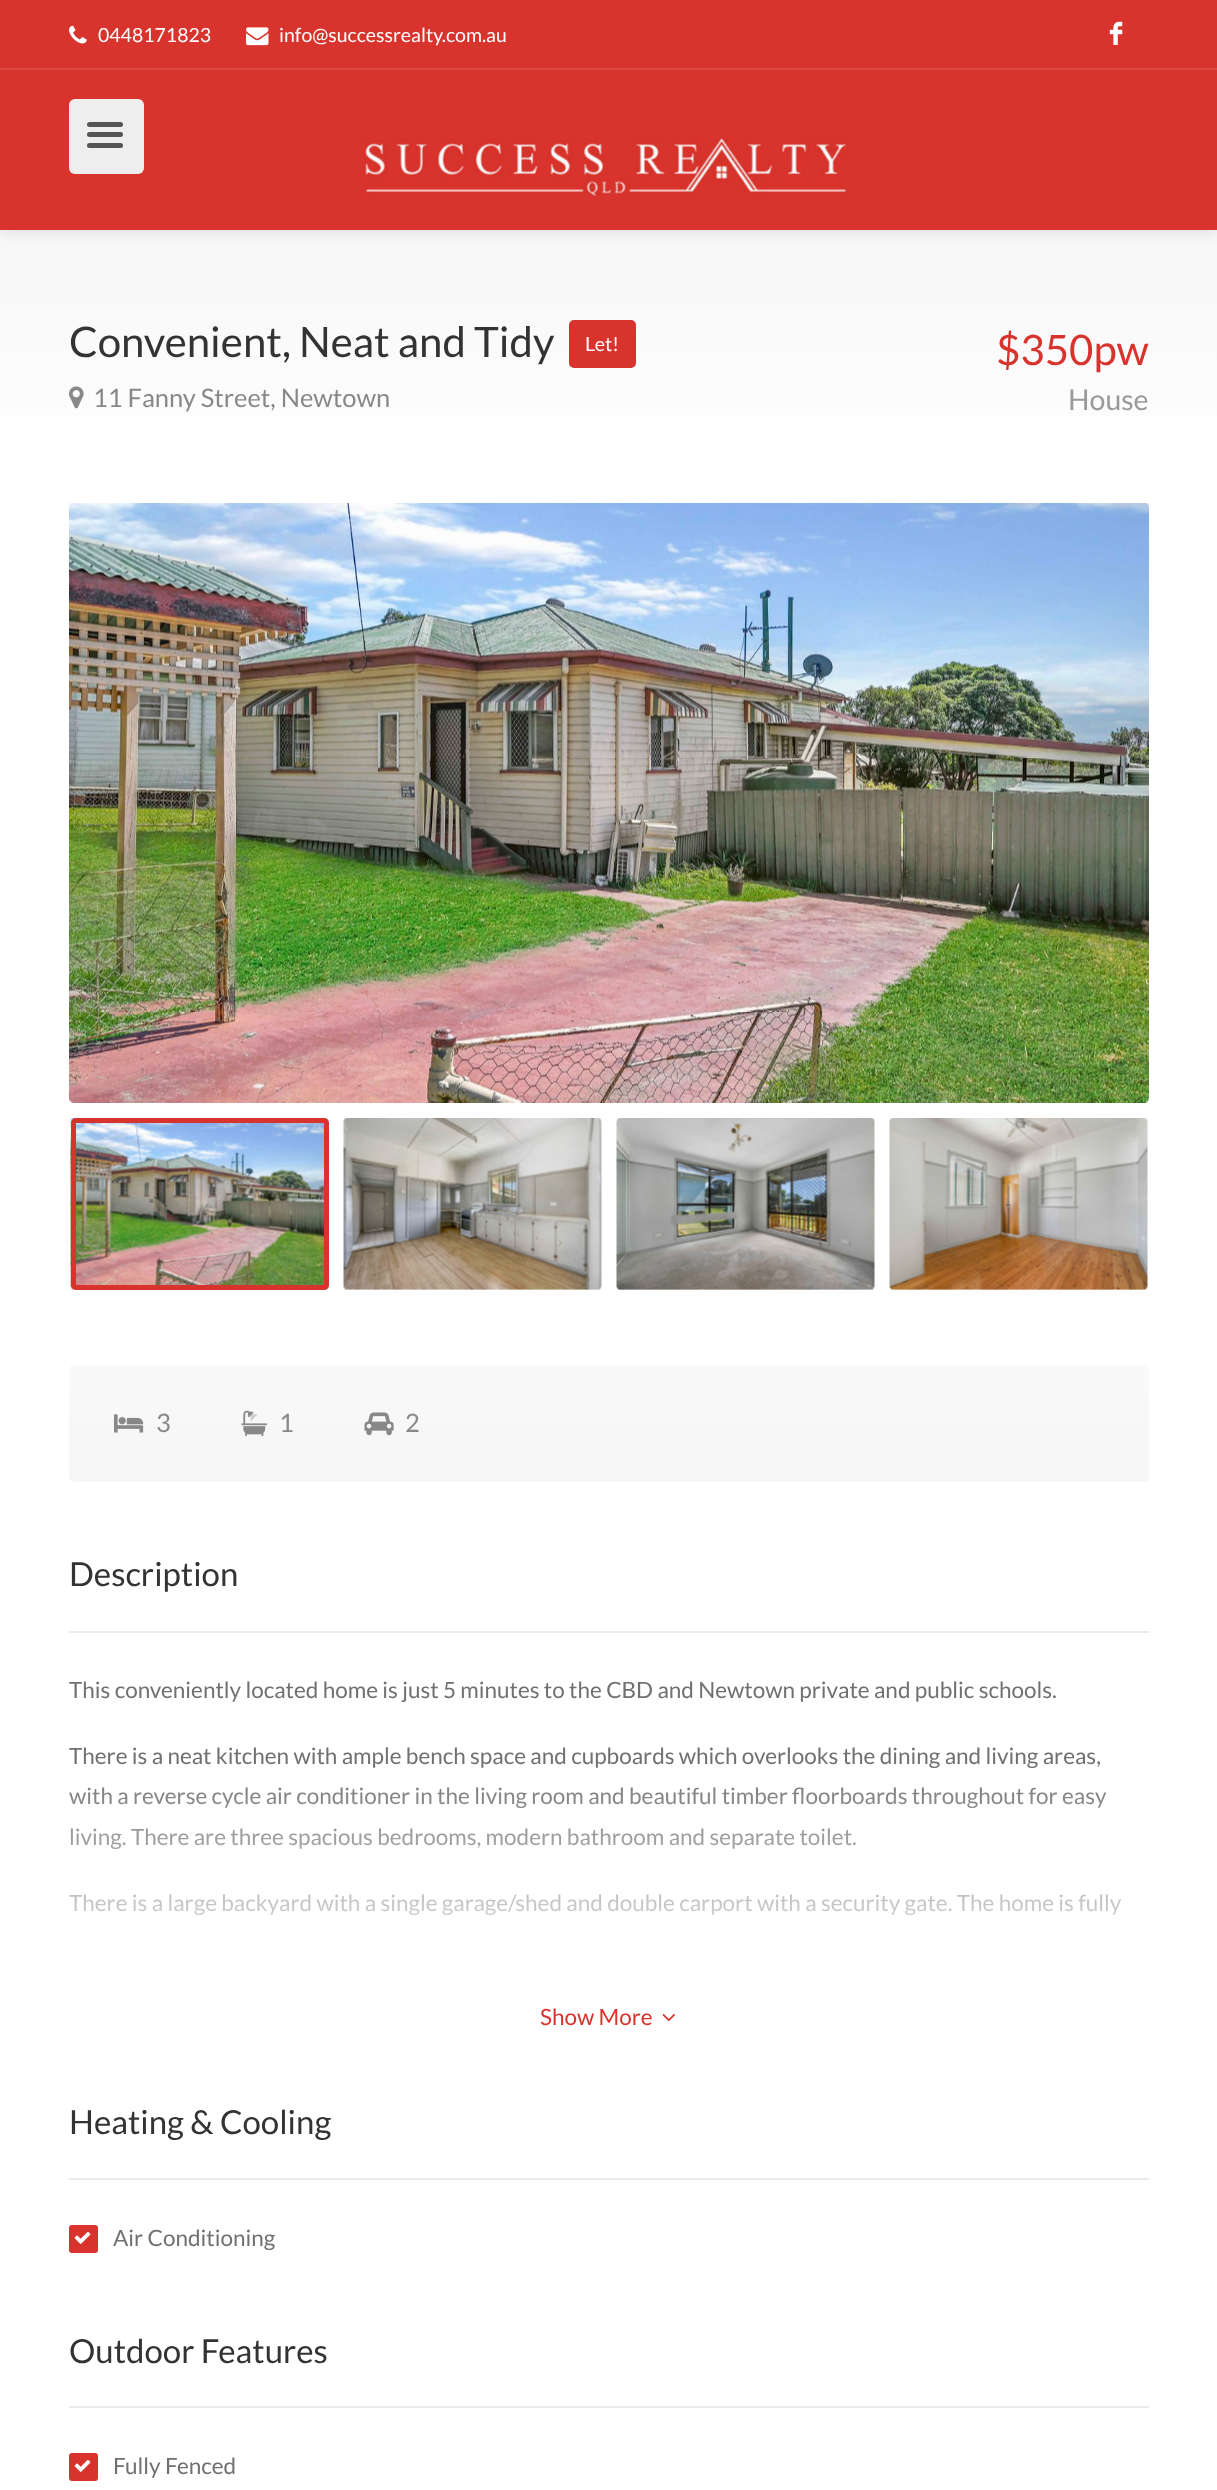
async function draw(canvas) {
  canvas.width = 1217;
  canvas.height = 2490;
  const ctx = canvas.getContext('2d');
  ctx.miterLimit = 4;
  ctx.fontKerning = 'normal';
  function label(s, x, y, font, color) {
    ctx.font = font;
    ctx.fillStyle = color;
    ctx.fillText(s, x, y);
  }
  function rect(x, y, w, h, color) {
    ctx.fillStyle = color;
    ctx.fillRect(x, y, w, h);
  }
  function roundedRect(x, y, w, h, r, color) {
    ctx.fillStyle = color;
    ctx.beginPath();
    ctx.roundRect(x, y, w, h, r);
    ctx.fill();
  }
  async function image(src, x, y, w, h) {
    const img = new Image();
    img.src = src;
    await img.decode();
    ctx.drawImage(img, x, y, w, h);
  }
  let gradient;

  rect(0, 0, 1217, 2490, '#fff');
  gradient = ctx.createLinearGradient(609, 229, 609, 503);
  gradient.addColorStop(0, '#f7f7f7');
  gradient.addColorStop(1, '#fff');
  ctx.fillStyle = gradient;
  ctx.fillRect(0, 230, 1217, 187);
  ctx.fillStyle = '#0000001f';
  ctx.filter = 'blur(7.5px)';
  ctx.beginPath();
  ctx.rect(0, 68, 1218, 162);
  ctx.fill();
  ctx.filter = 'none';
  rect(0, 0, 1217, 68, '#d8332c');
  await image('assets/img1.png', 69, 25, 18, 19);
  label('0448171823', 98, 42, '19.5px Lato', '#fff');
  await image('assets/img2.png', 246, 27, 23, 19);
  label('info@successrealty.com.au', 279, 42, '19.5px Lato', '#fff');
  await image('assets/img3.png', 1109, 21, 14, 24);
  rect(0, 70, 1217, 160, '#d8332c');
  rect(0, 68, 1217, 2, '#dc4741');
  roundedRect(69, 99, 75, 75, 6, '#eee');
  roundedRect(87, 143, 36, 5, 2.5, '#555');
  roundedRect(87, 122, 36, 5, 2.5, '#555');
  roundedRect(87, 132, 36, 5, 2.5, '#555');
  await image('assets/img4.png', 363, 138, 485, 58);
  label('Convenient, Neat and Tidy', 69, 357, '42px Lato', '#333');
  roundedRect(569, 320, 67, 48, 5, '#d8332c');
  label('Let!', 585, 351, '19.5px Lato', '#fff');
  await image('assets/img5.png', 69, 386, 15, 23);
  label('11 Fanny Street, Newtown', 93, 407, '25.5px Lato', '#888');
  label('$350pw', 996, 365, '42px Lato', '#d8332c');
  label('House', 1068, 410, '28.5px Lato', '#999');
  await image('assets/img6.png', 69, 503, 1080, 600);
  await image('assets/img7.png', 70, 1118, 259, 172);
  ctx.beginPath();
  ctx.roundRect(73.5, 1120.5, 253, 167, 2.5);
  ctx.strokeStyle = '#d8332c';
  ctx.lineWidth = 5;
  ctx.stroke();
  await image('assets/img8.png', 343, 1118, 259, 172);
  await image('assets/img9.png', 616, 1118, 259, 172);
  await image('assets/img10.png', 889, 1118, 259, 172);
  gradient = ctx.createLinearGradient(609, 1365, 609, 1482);
  gradient.addColorStop(0, '#f9f9f9');
  gradient.addColorStop(1, '#f6f6f6');
  ctx.fillStyle = gradient;
  ctx.beginPath();
  ctx.roundRect(69, 1365, 1080, 117, 5);
  ctx.fill();
  await image('assets/img11.png', 114, 1414, 30, 19);
  label('3', 156, 1432, '25.5px Lato', '#888');
  await image('assets/img12.png', 241, 1410, 26, 27);
  label('1', 279, 1432, '25.5px Lato', '#888');
  await image('assets/img13.png', 364, 1412, 30, 24);
  label('2', 405, 1432, '25.5px Lato', '#888');
  rect(69, 1631, 1080, 2, '#eaeaea');
  label('Description', 69, 1586, '33px Lato', '#333');
  label('This conveniently located home is just 5 minutes to the CBD and Newtown private and public schools.', 69, 1698, '22.5px Lato', '#707070');
  label('There is a neat kitchen with ample bench space and cupboards which overlooks the dining and living areas,', 69, 1764, '22.5px Lato', '#707070');
  label('with a reverse cycle air conditioner in the living room and beautiful timber floorboards throughout for easy', 69, 1804, '22.5px Lato', '#707070');
  label('living. There are three spacious bedrooms, modern bathroom and separate toilet.', 69, 1845, '22.5px Lato', '#707070');
  label('There is a large backyard with a single garage/shed and double carport with a security gate. The home is fully', 69, 1911, '22.5px Lato', '#707070');
  gradient = ctx.createLinearGradient(609, 1760, 609, 2030);
  gradient.addColorStop(0, '#ffffff00');
  gradient.addColorStop(0.88, '#fff');
  ctx.fillStyle = gradient;
  ctx.fillRect(69, 1765, 1052, 151);
  label('Show More', 540, 2025, '22.5px Lato', '#d8332c');
  await image('assets/img14.png', 662, 2014, 13, 8);
  rect(69, 2178, 1080, 2, '#eaeaea');
  label('Heating & Cooling', 69, 2134, '33px Lato', '#333');
  roundedRect(69, 2225, 29, 28, 3, '#d8332c');
  await image('assets/img15.png', 74, 2232, 17, 12);
  label('Air Conditioning', 113, 2246, '22.5px Lato', '#707070');
  rect(69, 2406, 1080, 2, '#eaeaea');
  label('Outdoor Features', 69, 2363, '33px Lato', '#333');
  roundedRect(69, 2453, 29, 28, 3, '#d8332c');
  await image('assets/img15.png', 74, 2460, 17, 12);
  label('Fully Fenced', 113, 2474, '22.5px Lato', '#707070');
}

draw(document.querySelector('canvas'));
